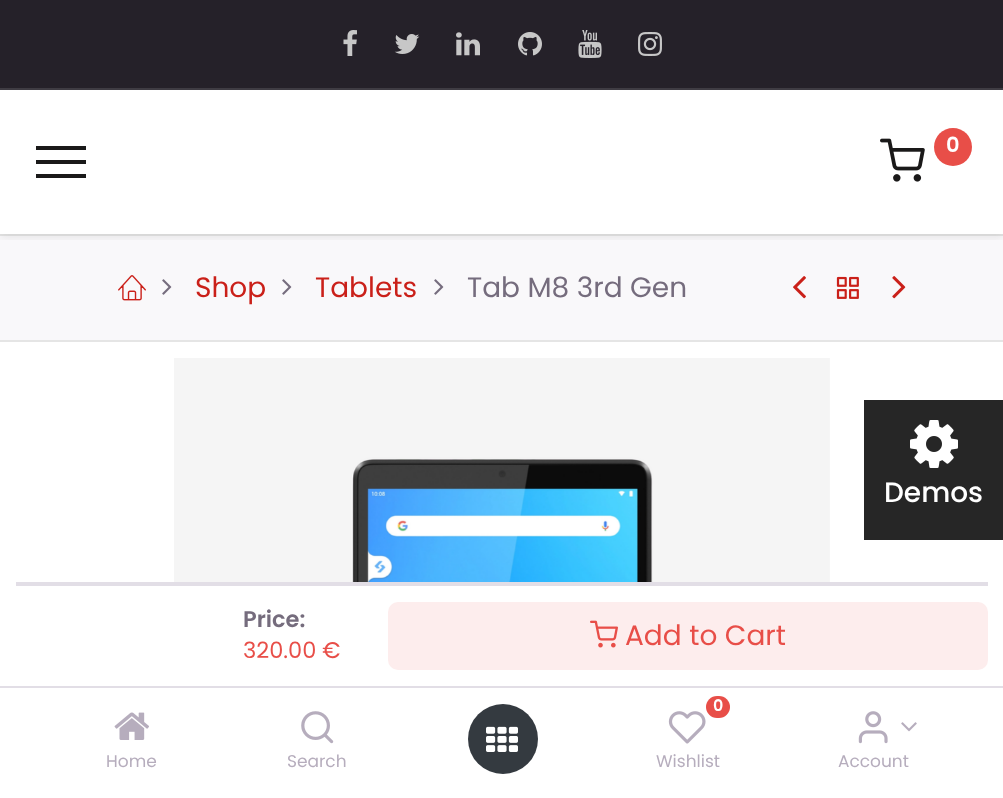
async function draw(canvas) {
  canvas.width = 1003;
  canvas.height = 798;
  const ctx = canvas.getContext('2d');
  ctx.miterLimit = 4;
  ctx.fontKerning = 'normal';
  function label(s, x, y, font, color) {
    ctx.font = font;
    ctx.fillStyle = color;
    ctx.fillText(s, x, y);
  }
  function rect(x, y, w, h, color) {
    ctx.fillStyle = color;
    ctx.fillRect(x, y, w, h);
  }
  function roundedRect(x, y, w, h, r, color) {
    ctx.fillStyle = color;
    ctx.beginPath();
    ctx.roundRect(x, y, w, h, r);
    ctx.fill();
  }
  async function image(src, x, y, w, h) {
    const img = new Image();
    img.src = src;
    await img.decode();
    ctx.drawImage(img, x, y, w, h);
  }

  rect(0, 0, 1003, 798, '#fff');
  rect(0, 0, 1003, 88, '#252129');
  rect(0, 88, 1003, 2, '#3f3c43');
  await image('assets/img1.png', 343, 30, 14, 26);
  await image('assets/img2.png', 394, 34, 26, 20);
  await image('assets/img3.png', 456, 32, 24, 24);
  await image('assets/img4.png', 518, 32, 24, 24);
  await image('assets/img5.png', 578, 30, 24, 28);
  await image('assets/img6.png', 638, 32, 24, 24);
  rect(0, 236, 1003, 104, '#f9f8fa');
  rect(0, 234, 1003, 2, '#e5e5e5');
  ctx.save();
  ctx.beginPath();
  ctx.rect(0, 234, 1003, 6);
  ctx.clip();
  ctx.fillStyle = '#00000012';
  ctx.filter = 'blur(4px)';
  ctx.beginPath();
  ctx.rect(0, 94, 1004, 144);
  ctx.fill();
  ctx.filter = 'none';
  ctx.restore();
  await image('assets/img7.png', 880, 138, 45, 44);
  ctx.fillStyle = '#e84e48';
  ctx.beginPath();
  ctx.arc(953, 147, 19, 0, 2 * Math.PI);
  ctx.fill();
  label('0', 946, 152, '600 21px Poppins', '#fff');
  rect(36, 146, 50, 4, '#1a1919');
  rect(36, 160, 50, 4, '#1a1919');
  rect(36, 174, 50, 4, '#1a1919');
  rect(0, 340, 1003, 2, '#e5e5e5');
  await image('assets/img8.png', 118, 275, 28, 26);
  await image('assets/img9.png', 162, 279, 10, 16);
  label('Shop', 195, 297, '28px Poppins', '#ca2019');
  await image('assets/img9.png', 282, 279, 10, 16);
  label('Tablets', 315, 297, '28px Poppins', '#ca2019');
  await image('assets/img9.png', 434, 279, 10, 16);
  label('Tab M8 3rd Gen', 467, 297, '28px Poppins', '#756c7d');
  await image('assets/img10.png', 793, 276, 13, 23);
  await image('assets/img11.png', 836, 276, 23, 23);
  await image('assets/img12.png', 892, 276, 14, 23);
  await image('assets/img13.png', 174, 358, 656, 224);
  rect(864, 400, 139, 140, '#262626');
  await image('assets/img14.png', 910, 420, 48, 48);
  label('Demos', 884, 502, '500 28px Poppins', '#fff');
  rect(16, 582, 972, 4, '#e2dee6');
  rect(0, 686, 1003, 2, '#e2dee6');
  label('Price:', 243, 627, '600 22.5px Poppins', '#756c7d');
  label('320.00 €', 243, 658, '22.5px Poppins', '#e84e48');
  roundedRect(388, 602, 600, 68, 10, '#fdeded');
  await image('assets/img15.png', 590, 620, 28, 28);
  label('Add to Cart', 625, 645, '28px Poppins', '#e84e48');
  await image('assets/img16.png', 114, 712, 35, 28);
  label('Home', 106, 767, '17px Poppins', '#b6adbd');
  await image('assets/img17.png', 301, 711, 33, 33);
  label('Search', 287, 767, '17px Poppins', '#b6adbd');
  ctx.fillStyle = '#343a40';
  ctx.beginPath();
  ctx.arc(503, 739, 35, 0, 2 * Math.PI);
  ctx.fill();
  await image('assets/img18.png', 486, 726, 32, 26);
  roundedRect(706, 696, 24, 22, 11, '#e84e48');
  label('0', 713, 711, '600 16px Poppins', '#fff');
  await image('assets/img19.png', 668, 711, 38, 33);
  label('Wishlist', 656, 767, '17px Poppins', '#b6adbd');
  await image('assets/img20.png', 858, 711, 30, 33);
  await image('assets/img21.png', 901, 722, 16, 10);
  label('Account', 838, 767, '17px Poppins', '#b6adbd');
}

draw(document.querySelector('canvas'));
